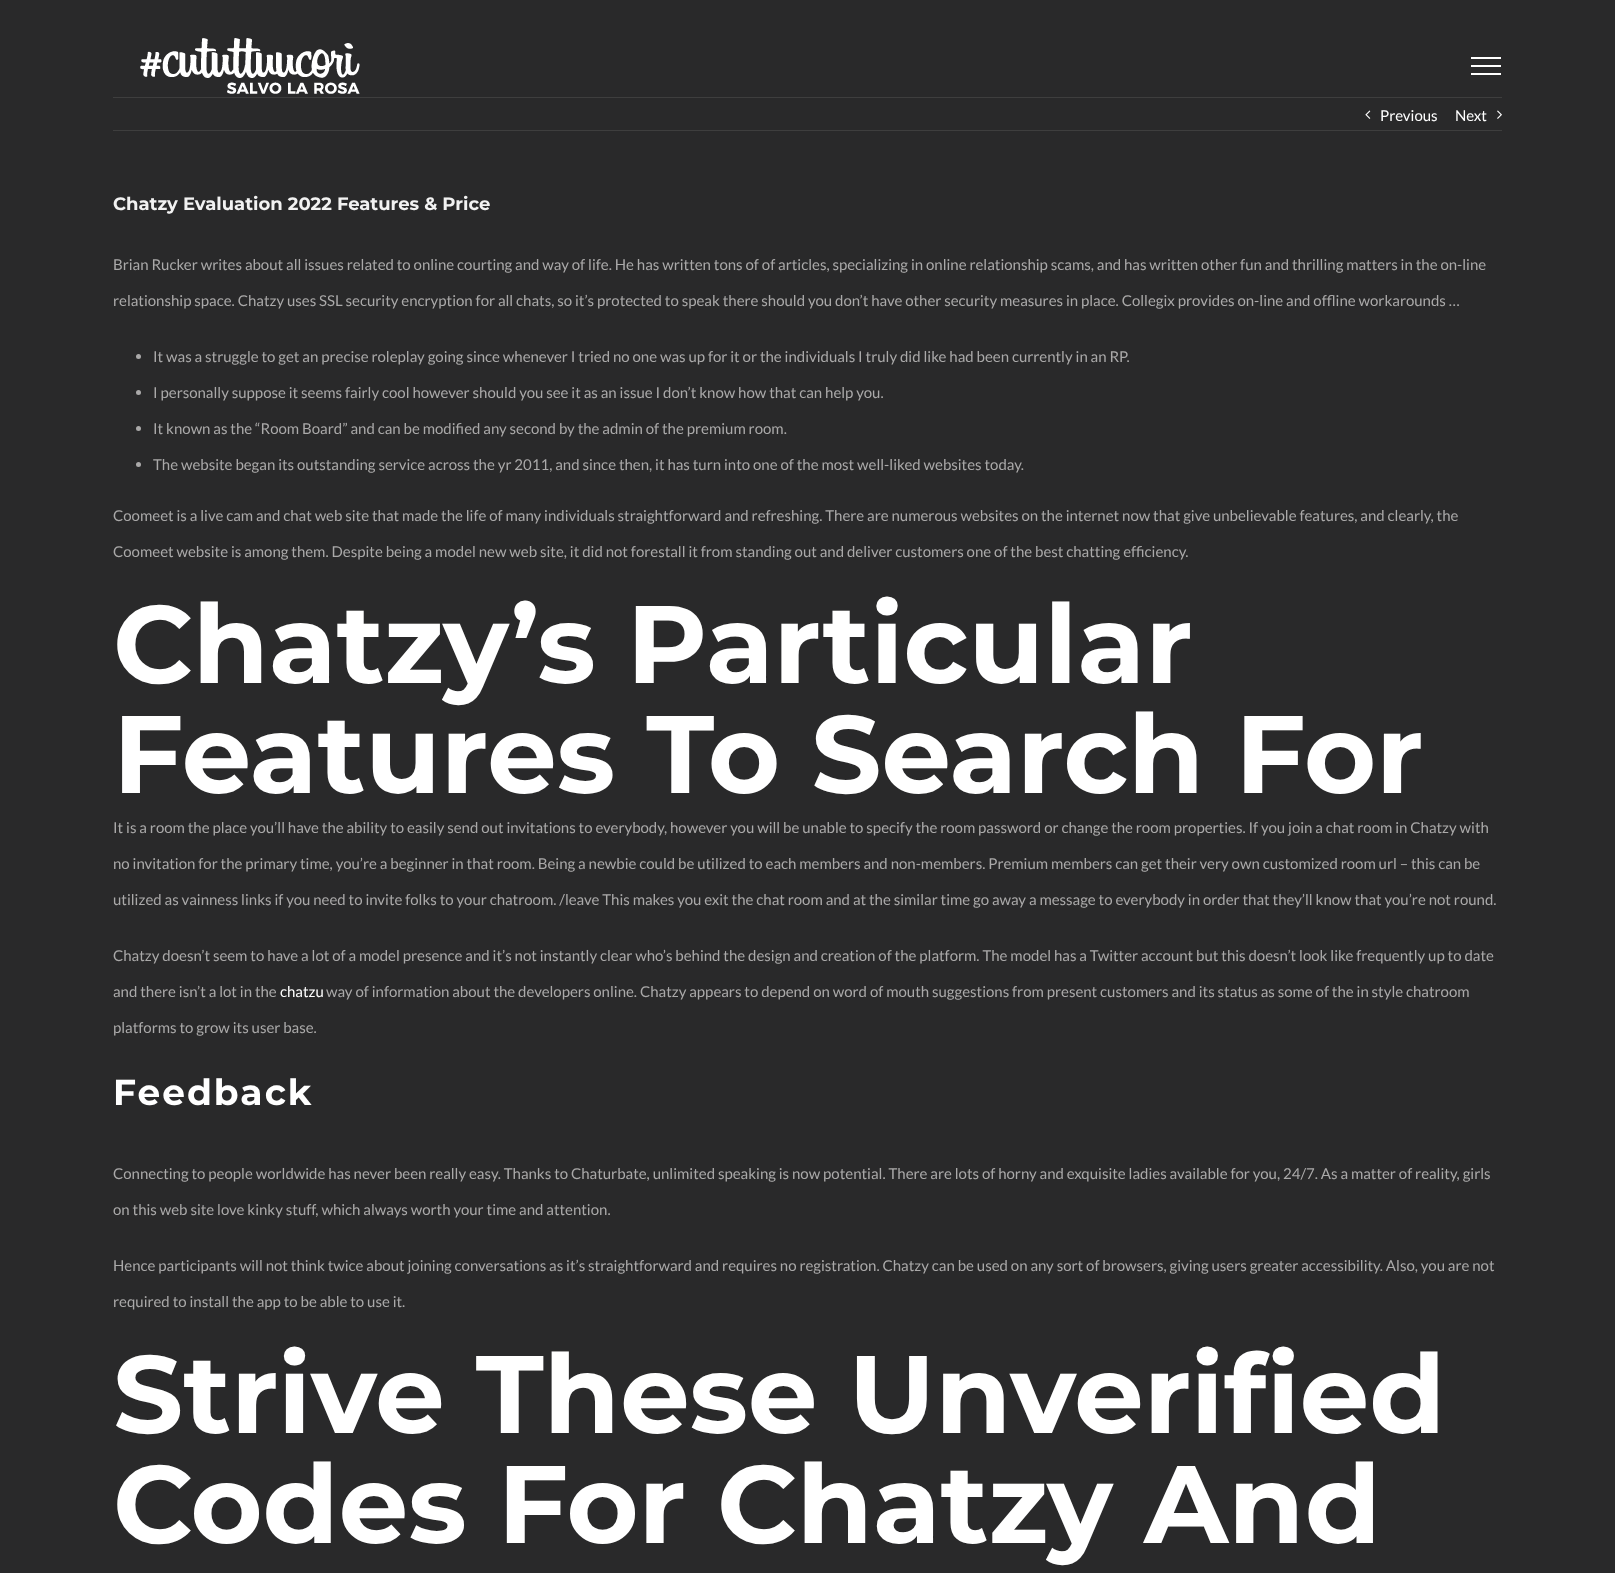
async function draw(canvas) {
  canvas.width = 1615;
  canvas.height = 1573;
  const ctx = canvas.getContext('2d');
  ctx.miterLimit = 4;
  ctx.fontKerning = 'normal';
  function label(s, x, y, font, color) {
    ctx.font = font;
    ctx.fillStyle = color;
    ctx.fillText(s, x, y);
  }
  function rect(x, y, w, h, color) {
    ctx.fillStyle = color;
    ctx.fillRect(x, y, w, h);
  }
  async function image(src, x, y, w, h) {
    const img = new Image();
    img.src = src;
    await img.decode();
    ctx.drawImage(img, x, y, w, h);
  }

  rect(0, 0, 1615, 1573, '#29292a');
  await image('assets/img1.png', 140, 38, 220, 56);
  rect(1471, 57, 30, 2, '#fff');
  rect(1471, 65, 30, 2, '#fff');
  rect(1471, 73, 30, 2, '#fff');
  rect(113, 97, 1389, 1, '#3e3e3e');
  rect(113, 130, 1389, 1, '#3e3e3e');
  await image('assets/img2.png', 1365, 110, 6, 9);
  label('Previous', 1380, 121, '15px Lato', '#fff');
  label('Next', 1455, 121, '15px Lato', '#fff');
  await image('assets/img3.png', 1497, 110, 5, 9);
  label('Chatzy Evaluation 2022 Features & Price', 113, 210, '100 18px Montserrat', '#f2f2f2');
  label('Brian Rucker writes about all issues related to online courting and way of life. He has written tons of of articles, specializing in online relationship scams, and has written other fun and thrilling matters in the on-line', 113, 270, '15px Lato', '#aaa9a9');
  label('relationship space. Chatzy uses SSL security encryption for all chats, so it’s protected to speak there should you don’t have other security measures in place. Collegix provides on-line and offline workarounds …', 113, 306, '15px Lato', '#aaa9a9');
  ctx.beginPath();
  ctx.arc(138.5, 356.5, 2.5, 0, 2 * Math.PI);
  ctx.fill();
  label('It was a struggle to get an precise roleplay going since whenever I tried no one was up for it or the individuals I truly did like had been currently in an RP.', 153, 362, '15px Lato', '#aaa9a9');
  ctx.beginPath();
  ctx.arc(138.5, 392.5, 2.5, 0, 2 * Math.PI);
  ctx.fill();
  label('I personally suppose it seems fairly cool however should you see it as an issue I don’t know how that can help you.', 153, 398, '15px Lato', '#aaa9a9');
  ctx.beginPath();
  ctx.arc(138.5, 428.5, 2.5, 0, 2 * Math.PI);
  ctx.fill();
  label('It known as the “Room Board” and can be modified any second by the admin of the premium room.', 153, 434, '15px Lato', '#aaa9a9');
  ctx.beginPath();
  ctx.arc(138.5, 464.5, 2.5, 0, 2 * Math.PI);
  ctx.fill();
  label('The website began its outstanding service across the yr 2011, and since then, it has turn into one of the most well-liked websites today.', 153, 470, '15px Lato', '#aaa9a9');
  label('Coomeet is a live cam and chat web site that made the life of many individuals straightforward and refreshing. There are numerous websites on the internet now that give unbelievable features, and clearly, the', 113, 521, '15px Lato', '#aaa9a9');
  label('Coomeet website is among them. Despite being a model new web site, it did not forestall it from standing out and deliver customers one of the best chatting efficiency.', 113, 557, '15px Lato', '#aaa9a9');
  label('Chatzy’s Particular', 113, 683, '100 110px Montserrat', '#fff');
  label('Features To Search For', 113, 793, '100 110px Montserrat', '#fff');
  label('It is a room the place you’ll have the ability to easily send out invitations to everybody, however you will be unable to specify the room password or change the room properties. If you join a chat room in Chatzy with', 113, 833, '15px Lato', '#aaa9a9');
  label('no invitation for the primary time, you’re a beginner in that room. Being a newbie could be utilized to each members and non-members. Premium members can get their very own customized room url – this can be', 113, 869, '15px Lato', '#aaa9a9');
  label('utilized as vainness links if you need to invite folks to your chatroom. /leave This makes you exit the chat room and at the similar time go away a message to everybody in order that they’ll know that you’re not round.', 113, 905, '15px Lato', '#aaa9a9');
  label('Chatzy doesn’t seem to have a lot of a model presence and it’s not instantly clear who’s behind the design and creation of the platform. The model has a Twitter account but this doesn’t look like frequently up to date', 113, 961, '15px Lato', '#aaa9a9');
  label('and there isn’t a lot in the', 113, 997, '15px Lato', '#aaa9a9');
  label('chatzu', 280, 997, '15px Lato', '#fff');
  label('way of information about the developers online. Chatzy appears to depend on word of mouth suggestions from present customers and its status as some of the in style chatroom', 326, 997, '15px Lato', '#aaa9a9');
  label('platforms to grow its user base.', 113, 1033, '15px Lato', '#aaa9a9');
  ctx.letterSpacing = '2px';
  label('Feedback', 113, 1105, '100 36px Montserrat', '#fff');
  ctx.letterSpacing = '0px';
  label('Connecting to people worldwide has never been really easy. Thanks to Chaturbate, unlimited speaking is now potential. There are lots of horny and exquisite ladies available for you, 24/7. As a matter of reality, girls', 113, 1179, '15px Lato', '#aaa9a9');
  label('on this web site love kinky stuff, which always worth your time and attention.', 113, 1215, '15px Lato', '#aaa9a9');
  label('Hence participants will not think twice about joining conversations as it’s straightforward and requires no registration. Chatzy can be used on any sort of browsers, giving users greater accessibility. Also, you are not', 113, 1271, '15px Lato', '#aaa9a9');
  label('required to install the app to be able to use it.', 113, 1307, '15px Lato', '#aaa9a9');
  label('Strive These Unverified', 113, 1433, '100 110px Montserrat', '#fff');
  label('Codes For Chatzy And', 113, 1543, '100 110px Montserrat', '#fff');
}

draw(document.querySelector('canvas'));
